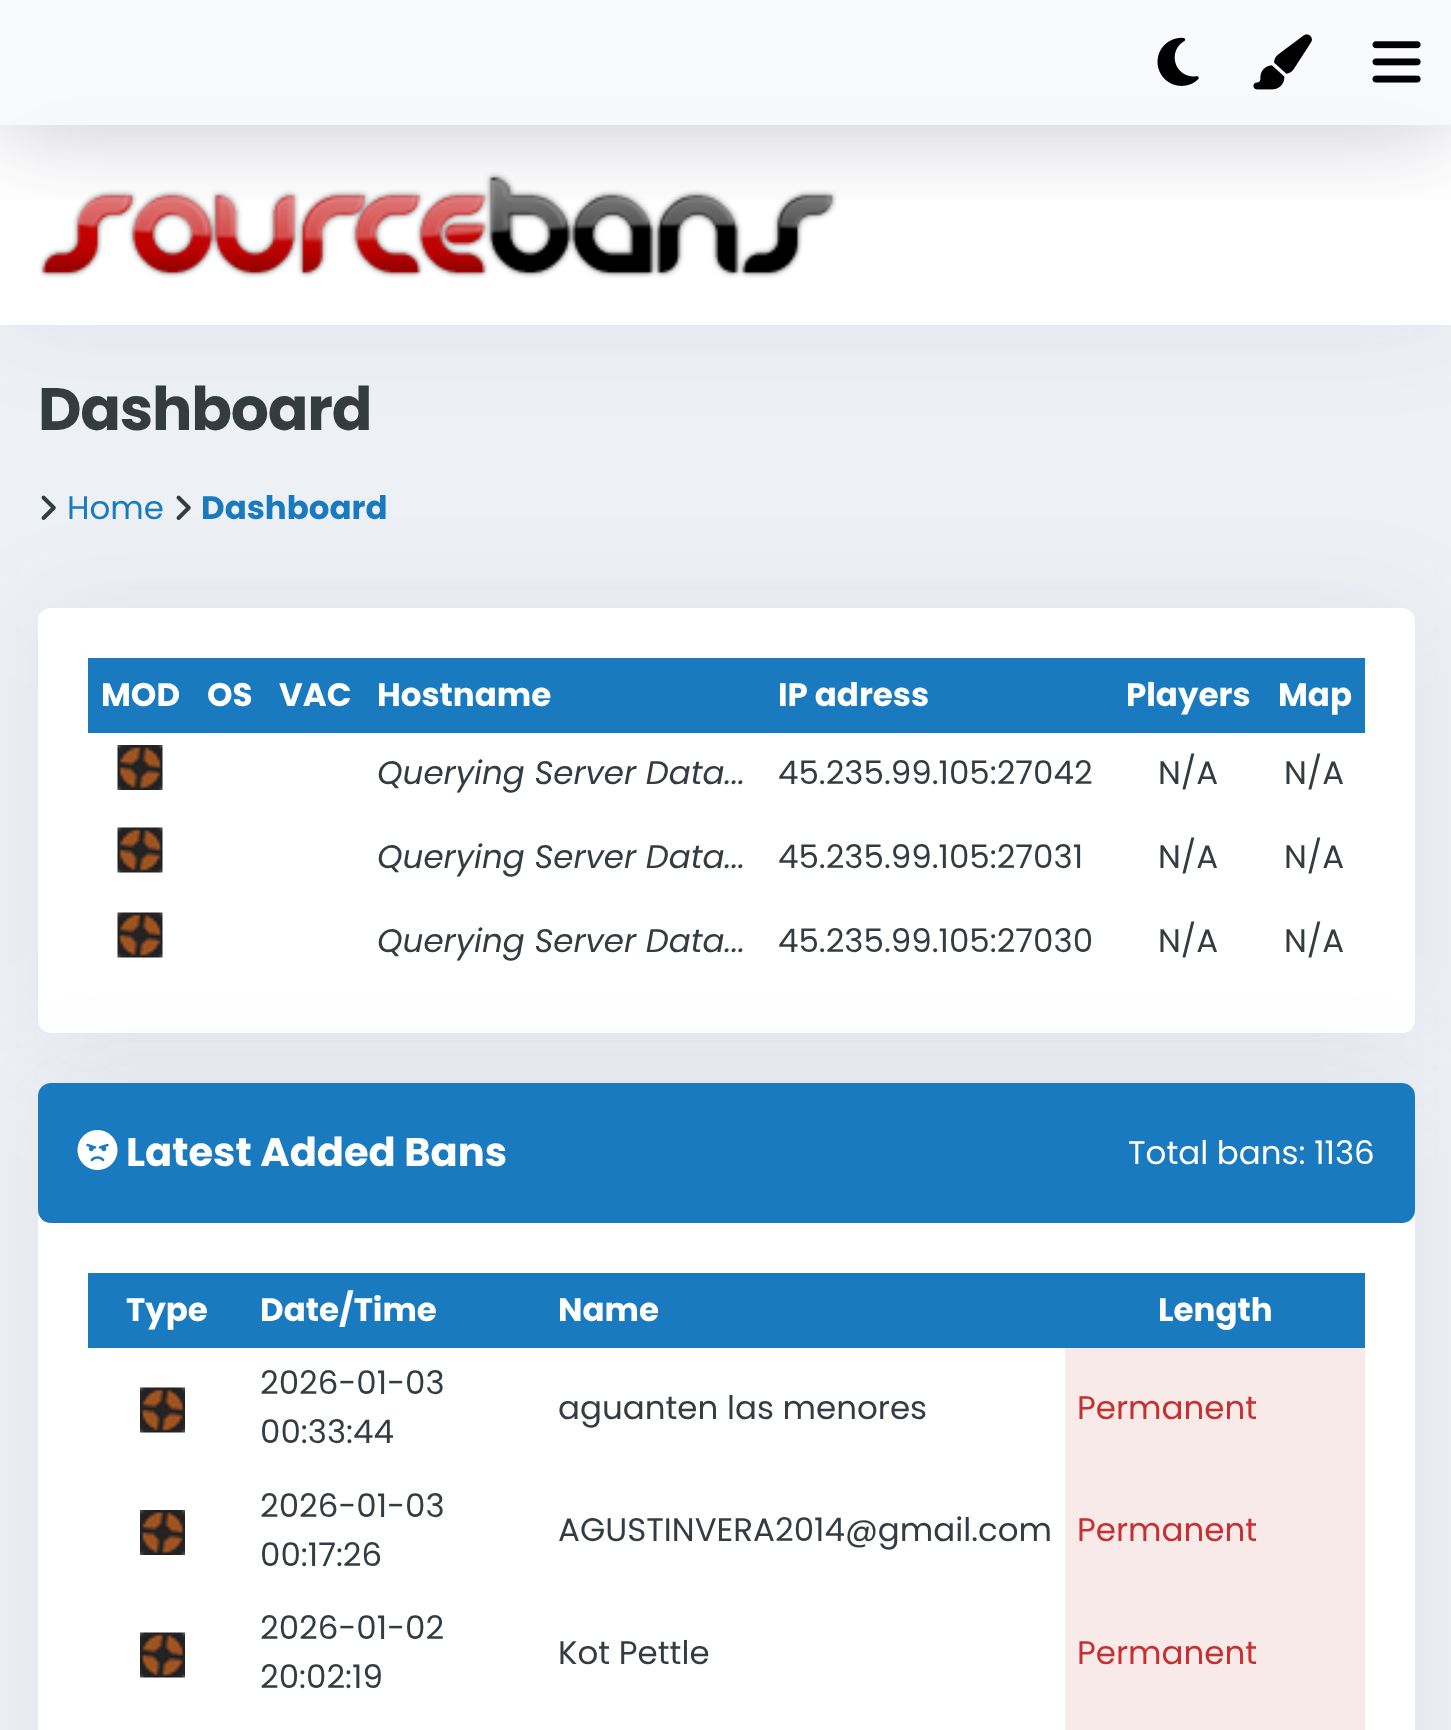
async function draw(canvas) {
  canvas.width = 1451;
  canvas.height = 1730;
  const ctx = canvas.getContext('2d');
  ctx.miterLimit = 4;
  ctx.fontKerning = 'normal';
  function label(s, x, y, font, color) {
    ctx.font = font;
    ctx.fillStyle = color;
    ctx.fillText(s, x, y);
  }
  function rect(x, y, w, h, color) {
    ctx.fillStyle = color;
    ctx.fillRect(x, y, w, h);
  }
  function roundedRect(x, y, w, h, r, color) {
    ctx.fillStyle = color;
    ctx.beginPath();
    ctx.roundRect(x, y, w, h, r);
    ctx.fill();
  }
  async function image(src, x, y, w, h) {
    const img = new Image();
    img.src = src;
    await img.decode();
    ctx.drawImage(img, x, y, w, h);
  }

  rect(0, 0, 1451, 1730, '#edf0f4');
  ctx.fillStyle = '#5e5c9a14';
  ctx.filter = 'blur(50px)';
  ctx.beginPath();
  ctx.rect(0, 125, 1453, 200);
  ctx.fill();
  ctx.filter = 'none';
  rect(0, 125, 1451, 200, '#fff');
  await image('assets/img1.png', 39, 172, 798, 106);
  ctx.save();
  ctx.beginPath();
  ctx.rect(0, 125, 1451, 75);
  ctx.clip();
  ctx.fillStyle = '#38375d4d';
  ctx.filter = 'blur(50px)';
  ctx.beginPath();
  ctx.rect(0, 0, 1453, 125);
  ctx.fill();
  ctx.filter = 'none';
  ctx.restore();
  rect(0, 0, 1451, 125, '#ffffffa6');
  await image('assets/img2.png', 1157, 37, 42, 49);
  await image('assets/img3.png', 1253, 34, 59, 56);
  await image('assets/img4.png', 1372, 41, 49, 42);
  ctx.letterSpacing = '-1.25px';
  label('Dashboard', 38, 430, 'bold 60px Poppins', '#353c41');
  ctx.fillStyle = '#5e5c9a14';
  ctx.filter = 'blur(50px)';
  ctx.beginPath();
  ctx.roundRect(38, 608, 1377, 425, 13);
  ctx.fill();
  ctx.filter = 'none';
  await image('assets/img5.png', 41, 495, 15, 25);
  ctx.letterSpacing = '0px';
  label('Home', 67, 519, '32.5px Poppins', '#1a7abf');
  await image('assets/img6.png', 176, 495, 15, 25);
  label('Dashboard', 201, 519, 'bold 32.5px Poppins', '#1a7abf');
  roundedRect(38, 608, 1377, 425, 13, '#fff');
  rect(88, 658, 1277, 75, '#1a7abf');
  label('MOD', 101, 706, 'bold 32.5px Poppins', '#fff');
  label('OS', 207, 706, 'bold 32.5px Poppins', '#fff');
  label('VAC', 279, 706, 'bold 32.5px Poppins', '#fff');
  label('Hostname', 377, 706, 'bold 32.5px Poppins', '#fff');
  label('IP adress', 778, 706, 'bold 32.5px Poppins', '#fff');
  label('Players', 1126, 706, 'bold 32.5px Poppins', '#fff');
  label('Map', 1278, 706, 'bold 32.5px Poppins', '#fff');
  await image('assets/img7.png', 117, 745, 46, 45);
  label('Querying Server Data...', 377, 784, 'italic 32.5px Poppins', '#353c41');
  label('45.235.99.105:27042', 778, 784, '32.5px Poppins', '#353c41');
  label('N/A', 1158, 784, '32.5px Poppins', '#353c41');
  label('N/A', 1284, 784, '32.5px Poppins', '#353c41');
  await image('assets/img8.png', 117, 827, 46, 46);
  label('Querying Server Data...', 377, 868, 'italic 32.5px Poppins', '#353c41');
  label('45.235.99.105:27031', 778, 868, '32.5px Poppins', '#353c41');
  label('N/A', 1158, 868, '32.5px Poppins', '#353c41');
  label('N/A', 1284, 868, '32.5px Poppins', '#353c41');
  ctx.fillStyle = '#5e5c9a14';
  ctx.filter = 'blur(50px)';
  ctx.beginPath();
  ctx.roundRect(38, 1083, 1377, 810, 13);
  ctx.fill();
  ctx.filter = 'none';
  await image('assets/img8.png', 117, 912, 46, 46);
  label('Querying Server Data...', 377, 952, 'italic 32.5px Poppins', '#353c41');
  label('45.235.99.105:27030', 778, 952, '32.5px Poppins', '#353c41');
  label('N/A', 1158, 952, '32.5px Poppins', '#353c41');
  label('N/A', 1284, 952, '32.5px Poppins', '#353c41');
  roundedRect(38, 1083, 1377, 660, 13, '#fff');
  roundedRect(38, 1083, 1377, 140, 13, '#1a7abf');
  await image('assets/img9.png', 77, 1130, 41, 40);
  label('Latest Added Bans', 126, 1166, 'bold 40px Poppins', '#fff');
  label('Total bans: 1136', 1128, 1164, '32.5px Poppins', '#fff');
  rect(88, 1273, 1277, 75, '#1a7abf');
  label('Type', 126, 1321, 'bold 32.5px Poppins', '#fff');
  label('Date/Time', 260, 1321, 'bold 32.5px Poppins', '#fff');
  label('Name', 558, 1321, 'bold 32.5px Poppins', '#fff');
  label('Length', 1158, 1321, 'bold 32.5px Poppins', '#fff');
  await image('assets/img10.png', 140, 1387, 45, 46);
  label('2026-01-03', 260, 1394, '32.5px Poppins', '#353c41');
  label('00:33:44', 260, 1443, '32.5px Poppins', '#353c41');
  label('aguanten las menores', 558, 1419, '32.5px Poppins', '#353c41');
  rect(1065, 1348, 300, 382, '#f9eaea');
  label('Permanent', 1077, 1419, '32.5px Poppins', '#c53030');
  await image('assets/img11.png', 140, 1510, 45, 45);
  label('2026-01-03', 260, 1517, '32.5px Poppins', '#353c41');
  label('00:17:26', 260, 1566, '32.5px Poppins', '#353c41');
  label('AGUSTINVERA2014@gmail.com', 558, 1541, '32.5px Poppins', '#353c41');
  label('Permanent', 1077, 1541, '32.5px Poppins', '#c53030');
  await image('assets/img10.png', 140, 1632, 45, 46);
  label('2026-01-02', 260, 1639, '32.5px Poppins', '#353c41');
  label('20:02:19', 260, 1688, '32.5px Poppins', '#353c41');
  label('Kot Pettle', 558, 1664, '32.5px Poppins', '#353c41');
  label('Permanent', 1077, 1664, '32.5px Poppins', '#c53030');
}

draw(document.querySelector('canvas'));
